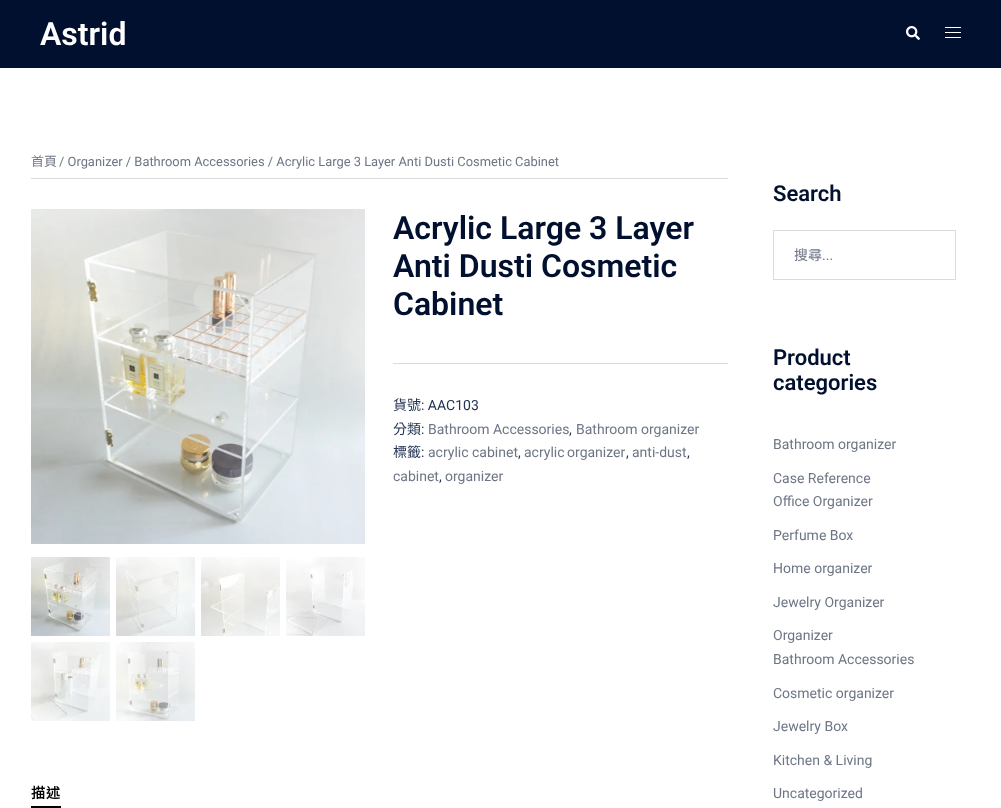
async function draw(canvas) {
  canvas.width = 1001;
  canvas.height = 808;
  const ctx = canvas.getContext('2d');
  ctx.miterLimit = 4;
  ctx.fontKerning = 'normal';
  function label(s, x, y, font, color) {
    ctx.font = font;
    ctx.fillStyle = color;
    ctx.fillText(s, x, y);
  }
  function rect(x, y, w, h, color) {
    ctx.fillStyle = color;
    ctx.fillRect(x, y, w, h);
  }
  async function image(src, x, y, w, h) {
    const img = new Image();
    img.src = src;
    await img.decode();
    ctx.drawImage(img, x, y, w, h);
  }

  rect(0, 0, 1001, 808, '#fff');
  rect(0, 0, 1001, 68, '#00102e');
  label('Astrid', 40, 45, '600 32px Roboto', '#fff');
  await image('assets/img1.png', 906, 26, 14, 14);
  rect(945, 27, 16, 1, '#fff');
  rect(945, 32, 16, 1, '#fff');
  rect(945, 37, 16, 1, '#fff');
  rect(31, 178, 697, 1, '#dbdbdb');
  label('首頁', 31, 166, '12.9px Noto Sans CJK TC', '#6d7685');
  label('/ Organizer / Bathroom Accessories / Acrylic Large 3 Layer Anti Dusti Cosmetic Cabinet', 59, 166, '12.9px Roboto', '#6d7685');
  await image('assets/img2.png', 31, 209, 334, 335);
  await image('assets/img3.png', 31, 557, 79, 79);
  await image('assets/img4.png', 116, 557, 79, 79);
  await image('assets/img5.png', 201, 557, 79, 79);
  await image('assets/img6.png', 286, 557, 79, 79);
  await image('assets/img7.png', 31, 642, 79, 79);
  await image('assets/img8.png', 116, 642, 79, 79);
  label('Acrylic Large 3 Layer', 393, 239, '600 32px Roboto', '#00102e');
  label('Anti Dusti Cosmetic', 393, 277, '600 32px Roboto', '#00102e');
  label('Cabinet', 393, 315, '600 32px Roboto', '#00102e');
  rect(393, 363, 335, 1, '#dbdbdb');
  label('貨號', 393, 410, '14px Noto Sans CJK TC', '#233452');
  label(': AAC103', 421, 410, '14px Roboto', '#233452');
  label('分類', 393, 434, '14px Noto Sans CJK TC', '#233452');
  label(':', 421, 434, '14px Roboto', '#233452');
  label('Bathroom Accessories', 428, 434, '14px Roboto', '#6d7685');
  label(',', 569, 434, '14px Roboto', '#233452');
  label('Bathroom organizer', 576, 434, '14px Roboto', '#6d7685');
  label('標籤', 393, 457, '14px Noto Sans CJK TC', '#233452');
  label(':', 421, 457, '14px Roboto', '#233452');
  label('acrylic cabinet', 428, 457, '14px Roboto', '#6d7685');
  label(',', 518, 457, '14px Roboto', '#233452');
  ctx.wordSpacing = '-1px';
  label('acrylic organizer', 524, 457, '14px Roboto', '#6d7685');
  ctx.wordSpacing = '0px';
  label(',', 626, 457, '14px Roboto', '#233452');
  label('anti-dust', 632, 457, '14px Roboto', '#6d7685');
  label(',', 687, 457, '14px Roboto', '#233452');
  label('cabinet', 393, 481, '14px Roboto', '#6d7685');
  label(',', 439, 481, '14px Roboto', '#233452');
  label('organizer', 445, 481, '14px Roboto', '#6d7685');
  ctx.letterSpacing = '1px';
  label('描述', 31, 798, 'bold 14px Noto Sans CJK TC', '#000');
  rect(31, 806, 30, 2, '#000');
  ctx.letterSpacing = '0px';
  label('Search', 773, 201, '600 22px Roboto', '#00102e');
  ctx.strokeStyle = '#dbdbdb';
  ctx.strokeRect(773.5, 230.5, 182, 49);
  label('搜尋', 794, 260, '14px Noto Sans CJK TC', '#6d7685');
  label('...', 822, 260, '14px Roboto', '#6d7685');
  label('Product', 773, 365, '600 22px Roboto', '#00102e');
  label('categories', 773, 390, '600 22px Roboto', '#00102e');
  label('Bathroom organizer', 773, 449, '14px Roboto', '#6d7685');
  label('Case Reference', 773, 483, '14px Roboto', '#6d7685');
  label('Office Organizer', 773, 506, '14px Roboto', '#6d7685');
  label('Perfume Box', 773, 540, '14px Roboto', '#6d7685');
  label('Home organizer', 773, 573, '14px Roboto', '#6d7685');
  label('Jewelry Organizer', 773, 607, '14px Roboto', '#6d7685');
  label('Organizer', 773, 640, '14px Roboto', '#6d7685');
  label('Bathroom Accessories', 773, 664, '14px Roboto', '#6d7685');
  label('Cosmetic organizer', 773, 698, '14px Roboto', '#6d7685');
  label('Jewelry Box', 773, 731, '14px Roboto', '#6d7685');
  label('Kitchen & Living', 773, 765, '14px Roboto', '#6d7685');
  label('Uncategorized', 773, 798, '14px Roboto', '#6d7685');
}

draw(document.querySelector('canvas'));
